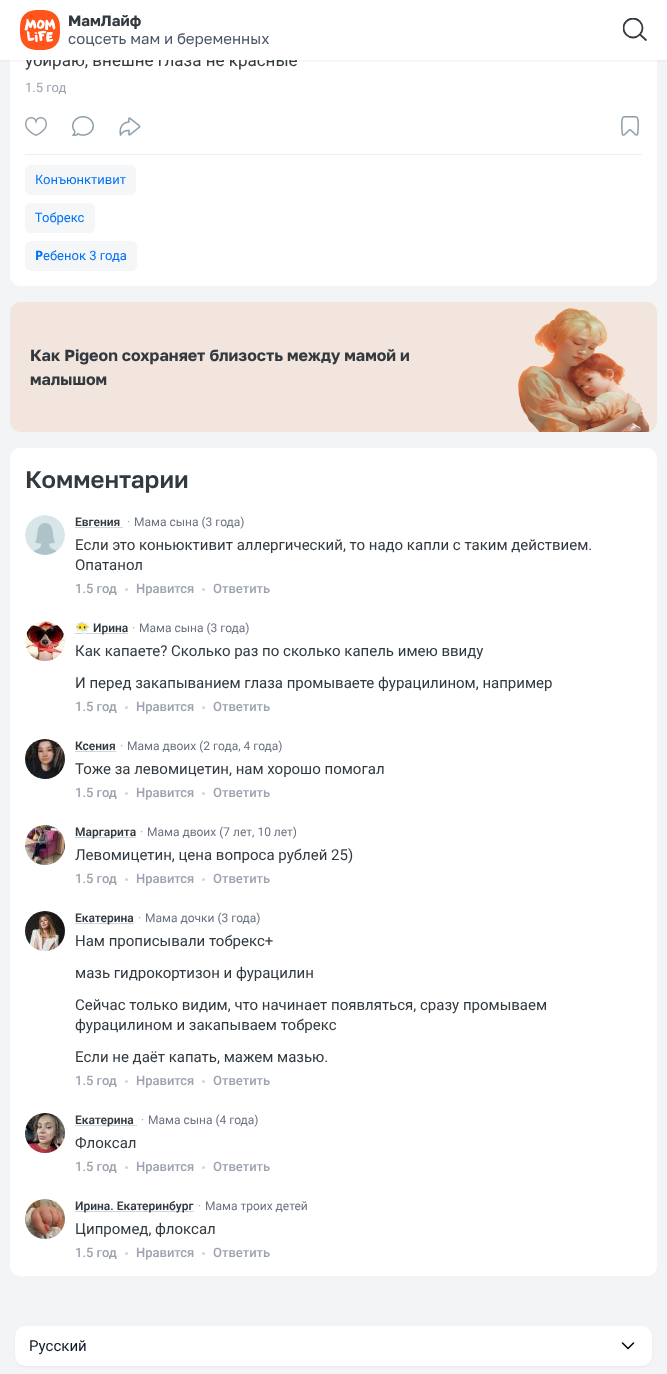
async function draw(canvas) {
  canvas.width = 667;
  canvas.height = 1374;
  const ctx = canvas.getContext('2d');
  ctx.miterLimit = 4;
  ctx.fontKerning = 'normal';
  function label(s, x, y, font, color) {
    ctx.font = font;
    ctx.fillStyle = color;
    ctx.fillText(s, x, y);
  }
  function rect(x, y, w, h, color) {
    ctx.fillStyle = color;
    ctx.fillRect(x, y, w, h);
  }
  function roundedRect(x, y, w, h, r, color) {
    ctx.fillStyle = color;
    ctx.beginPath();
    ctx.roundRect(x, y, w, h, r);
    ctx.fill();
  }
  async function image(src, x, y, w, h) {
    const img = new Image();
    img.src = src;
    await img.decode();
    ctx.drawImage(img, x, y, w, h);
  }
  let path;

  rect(0, 0, 667, 1374, '#f3f4f6');
  roundedRect(10, -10, 647, 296, 10, '#fff');
  ctx.fillStyle = '#0000000d';
  ctx.filter = 'blur(1px)';
  ctx.beginPath();
  ctx.rect(0, 1, 667, 60);
  ctx.fill();
  ctx.filter = 'none';
  label('убираю, внешне глаза не красные', 25, 66, '17px Roboto', '#323a40');
  rect(0, 0, 667, 60, '#fff');
  await image('assets/img1.png', 20, 10, 40, 40);
  label('МамЛайф', 68, 26, 'bold 15px Golos Text', '#323a40');
  label('соцсеть мам и беременных', 68, 44, '15px Golos Text', '#4b5563');
  ctx.save();
  ctx.beginPath();
  ctx.rect(623, 18, 24, 24);
  ctx.clip();
  ctx.beginPath();
  ctx.arc(633, 28, 9.5, 0, 2 * Math.PI);
  ctx.strokeStyle = '#323a40';
  ctx.lineWidth = 1.8;
  ctx.stroke();
  ctx.restore();
  path = new Path2D('M640.5 35L646 40');
  ctx.strokeStyle = '#323a40';
  ctx.lineWidth = 1.8;
  ctx.lineCap = 'round';
  ctx.lineJoin = 'round';
  ctx.stroke(path);
  label('1.5 год', 25, 92, '13px Roboto', '#9ca3af');
  rect(25, 154, 617, 1, '#eee');
  await image('assets/img2.png', 25, 117, 22, 19);
  await image('assets/img3.png', 72, 116, 22, 20);
  await image('assets/img4.png', 119, 117, 22, 19);
  await image('assets/img5.png', 621, 116, 18, 20);
  roundedRect(25, 165, 111, 30, 6, '#f4f6f7');
  label('К', 35, 184, '13px Noto Sans', '#0071f5');
  label('онъюнктивит', 43, 184, '13px Roboto', '#0071f5');
  roundedRect(25, 203, 70, 30, 6, '#f4f6f7');
  label('Т', 35, 222, '13px Noto Sans', '#0071f5');
  label('обрекс', 42, 222, '13px Roboto', '#0071f5');
  roundedRect(25, 241, 112, 30, 6, '#f4f6f7');
  label('Р', 35, 260, 'bold 13px Noto Sans', '#0071f5');
  label('ебенок 3 года', 43, 260, '13px Roboto', '#0071f5');
  roundedRect(10, 302, 647, 130, 10, '#f2e5dd');
  label('Как Pigeon сохраняет близость между мамой и', 30, 361, 'bold 16px Golos Text', '#323a40');
  label('малышом', 30, 385, 'bold 16px Golos Text', '#323a40');
  await image('assets/img6.png', 518, 308, 132, 124);
  roundedRect(10, 448, 647, 828, 10, '#fff');
  label('Комментарии', 25, 488, '600 24px Golos Text', '#323a40');
  await image('assets/img7.png', 25, 515, 40, 40);
  label('Евгения', 75, 526, '600 12px Roboto', '#323a40');
  rect(75, 527, 48, 1, '#d1d5db');
  label('·', 127, 526, '12px Roboto', '#9ca3af');
  label('Мама сына (3 года)', 134, 526, '12px Roboto', '#6b7280');
  label('Если это коньюктивит аллергический, то надо капли с таким действием.', 75, 550, '15px Roboto', '#323a40');
  label('Опатанол', 75, 570, '15px Roboto', '#323a40');
  label('1.5 год', 75, 593, '500 13px Roboto', '#9ca3af');
  ctx.fillStyle = '#d1d5db';
  ctx.beginPath();
  ctx.arc(126.5, 589.5, 1.5, 0, 2 * Math.PI);
  ctx.fill();
  label('Нравится', 136, 593, '500 13px Roboto', '#9ca3af');
  ctx.fillStyle = '#d1d5db';
  ctx.beginPath();
  ctx.arc(203.5, 589.5, 1.5, 0, 2 * Math.PI);
  ctx.fill();
  label('Ответить', 213, 593, '500 13px Roboto', '#9ca3af');
  await image('assets/img8.png', 25, 621, 40, 40);
  rect(75, 633, 53, 1, '#d1d5db');
  label('😶‍🌫️', 75, 632, 'bold 12px Noto Color Emoji', '#323a40');
  label('Ирина', 93, 632, '600 12px Roboto', '#323a40');
  label('·', 132, 632, '12px Roboto', '#9ca3af');
  label('Мама сына (3 года)', 139, 632, '12px Roboto', '#6b7280');
  label('Как капаете? Сколько раз по сколько капель имею ввиду', 75, 656, '15px Roboto', '#323a40');
  label('И перед закапыванием глаза промываете фурацилином, например', 75, 688, '15px Roboto', '#323a40');
  label('1.5 год', 75, 711, '500 13px Roboto', '#9ca3af');
  ctx.fillStyle = '#d1d5db';
  ctx.beginPath();
  ctx.arc(126.5, 707.5, 1.5, 0, 2 * Math.PI);
  ctx.fill();
  label('Нравится', 136, 711, '500 13px Roboto', '#9ca3af');
  ctx.fillStyle = '#d1d5db';
  ctx.beginPath();
  ctx.arc(203.5, 707.5, 1.5, 0, 2 * Math.PI);
  ctx.fill();
  label('Ответить', 213, 711, '500 13px Roboto', '#9ca3af');
  await image('assets/img9.png', 25, 739, 40, 40);
  label('Ксения', 75, 750, '600 12px Roboto', '#323a40');
  rect(75, 751, 41, 1, '#d1d5db');
  label('·', 120, 750, '12px Roboto', '#9ca3af');
  label('Мама двоих (2 года, 4 года)', 127, 750, '12px Roboto', '#6b7280');
  label('Тоже за левомицетин, нам хорошо помогал', 75, 774, '15px Roboto', '#323a40');
  label('1.5 год', 75, 797, '500 13px Roboto', '#9ca3af');
  ctx.fillStyle = '#d1d5db';
  ctx.beginPath();
  ctx.arc(126.5, 793.5, 1.5, 0, 2 * Math.PI);
  ctx.fill();
  label('Нравится', 136, 797, '500 13px Roboto', '#9ca3af');
  ctx.fillStyle = '#d1d5db';
  ctx.beginPath();
  ctx.arc(203.5, 793.5, 1.5, 0, 2 * Math.PI);
  ctx.fill();
  label('Ответить', 213, 797, '500 13px Roboto', '#9ca3af');
  await image('assets/img10.png', 25, 825, 40, 40);
  rect(75, 837, 61, 1, '#d1d5db');
  label('Маргарита', 75, 836, '600 12px Roboto', '#323a40');
  label('·', 140, 836, '12px Roboto', '#9ca3af');
  label('Мама двоих (7 лет, 10 лет)', 147, 836, '12px Roboto', '#6b7280');
  label('Левомицетин, цена вопроса рублей 25)', 75, 860, '15px Roboto', '#323a40');
  label('1.5 год', 75, 883, '500 13px Roboto', '#9ca3af');
  ctx.fillStyle = '#d1d5db';
  ctx.beginPath();
  ctx.arc(126.5, 879.5, 1.5, 0, 2 * Math.PI);
  ctx.fill();
  label('Нравится', 136, 883, '500 13px Roboto', '#9ca3af');
  ctx.fillStyle = '#d1d5db';
  ctx.beginPath();
  ctx.arc(203.5, 879.5, 1.5, 0, 2 * Math.PI);
  ctx.fill();
  label('Ответить', 213, 883, '500 13px Roboto', '#9ca3af');
  await image('assets/img11.png', 25, 911, 40, 40);
  rect(75, 923, 59, 1, '#d1d5db');
  label('Екатерина', 75, 922, '600 12px Roboto', '#323a40');
  label('·', 138, 922, '12px Roboto', '#9ca3af');
  label('Мама дочки (3 года)', 145, 922, '12px Roboto', '#6b7280');
  label('Нам прописывали тобрекс+', 75, 946, '15px Roboto', '#323a40');
  label('мазь гидрокортизон и фурацилин', 75, 978, '15px Roboto', '#323a40');
  label('Сейчас только видим, что начинает появляться, сразу промываем', 75, 1010, '15px Roboto', '#323a40');
  label('фурацилином и закапываем тобрекс', 75, 1030, '15px Roboto', '#323a40');
  label('Если не даёт капать, мажем мазью.', 75, 1062, '15px Roboto', '#323a40');
  label('1.5 год', 75, 1085, '500 13px Roboto', '#9ca3af');
  ctx.fillStyle = '#d1d5db';
  ctx.beginPath();
  ctx.arc(126.5, 1081.5, 1.5, 0, 2 * Math.PI);
  ctx.fill();
  label('Нравится', 136, 1085, '500 13px Roboto', '#9ca3af');
  ctx.fillStyle = '#d1d5db';
  ctx.beginPath();
  ctx.arc(203.5, 1081.5, 1.5, 0, 2 * Math.PI);
  ctx.fill();
  label('Ответить', 213, 1085, '500 13px Roboto', '#9ca3af');
  await image('assets/img12.png', 25, 1113, 40, 40);
  rect(75, 1125, 62, 1, '#d1d5db');
  label('Екатерина', 75, 1124, '600 12px Roboto', '#323a40');
  label('·', 141, 1124, '12px Roboto', '#9ca3af');
  label('Мама сына (4 года)', 148, 1124, '12px Roboto', '#6b7280');
  label('Флоксал', 75, 1148, '15px Roboto', '#323a40');
  label('1.5 год', 75, 1171, '500 13px Roboto', '#9ca3af');
  ctx.fillStyle = '#d1d5db';
  ctx.beginPath();
  ctx.arc(126.5, 1167.5, 1.5, 0, 2 * Math.PI);
  ctx.fill();
  label('Нравится', 136, 1171, '500 13px Roboto', '#9ca3af');
  ctx.fillStyle = '#d1d5db';
  ctx.beginPath();
  ctx.arc(203.5, 1167.5, 1.5, 0, 2 * Math.PI);
  ctx.fill();
  label('Ответить', 213, 1171, '500 13px Roboto', '#9ca3af');
  await image('assets/img13.png', 25, 1199, 40, 40);
  rect(75, 1211, 119, 1, '#d1d5db');
  label('Ирина. Екатеринбург', 75, 1210, '600 12px Roboto', '#323a40');
  label('·', 198, 1210, '12px Roboto', '#9ca3af');
  label('Мама троих детей', 205, 1210, '12px Roboto', '#6b7280');
  label('Ципромед, флоксал', 75, 1234, '15px Roboto', '#323a40');
  label('1.5 год', 75, 1257, '500 13px Roboto', '#9ca3af');
  ctx.fillStyle = '#d1d5db';
  ctx.beginPath();
  ctx.arc(126.5, 1253.5, 1.5, 0, 2 * Math.PI);
  ctx.fill();
  label('Нравится', 136, 1257, '500 13px Roboto', '#9ca3af');
  ctx.fillStyle = '#d1d5db';
  ctx.beginPath();
  ctx.arc(203.5, 1253.5, 1.5, 0, 2 * Math.PI);
  ctx.fill();
  label('Ответить', 213, 1257, '500 13px Roboto', '#9ca3af');
  ctx.fillStyle = '#0000000d';
  ctx.filter = 'blur(1px)';
  ctx.beginPath();
  ctx.roundRect(15, 1327, 637, 40, 10);
  ctx.fill();
  ctx.filter = 'none';
  roundedRect(15, 1326, 637, 40, 10, '#fff');
  label('Русский', 29, 1351, '15px Roboto', '#111827');
  path = new Path2D('M622.5 1343L628 1348.5L633.5 1343');
  ctx.strokeStyle = '#000';
  ctx.lineWidth = 1.5;
  ctx.lineJoin = 'miter';
  ctx.stroke(path);
}

draw(document.querySelector('canvas'));
